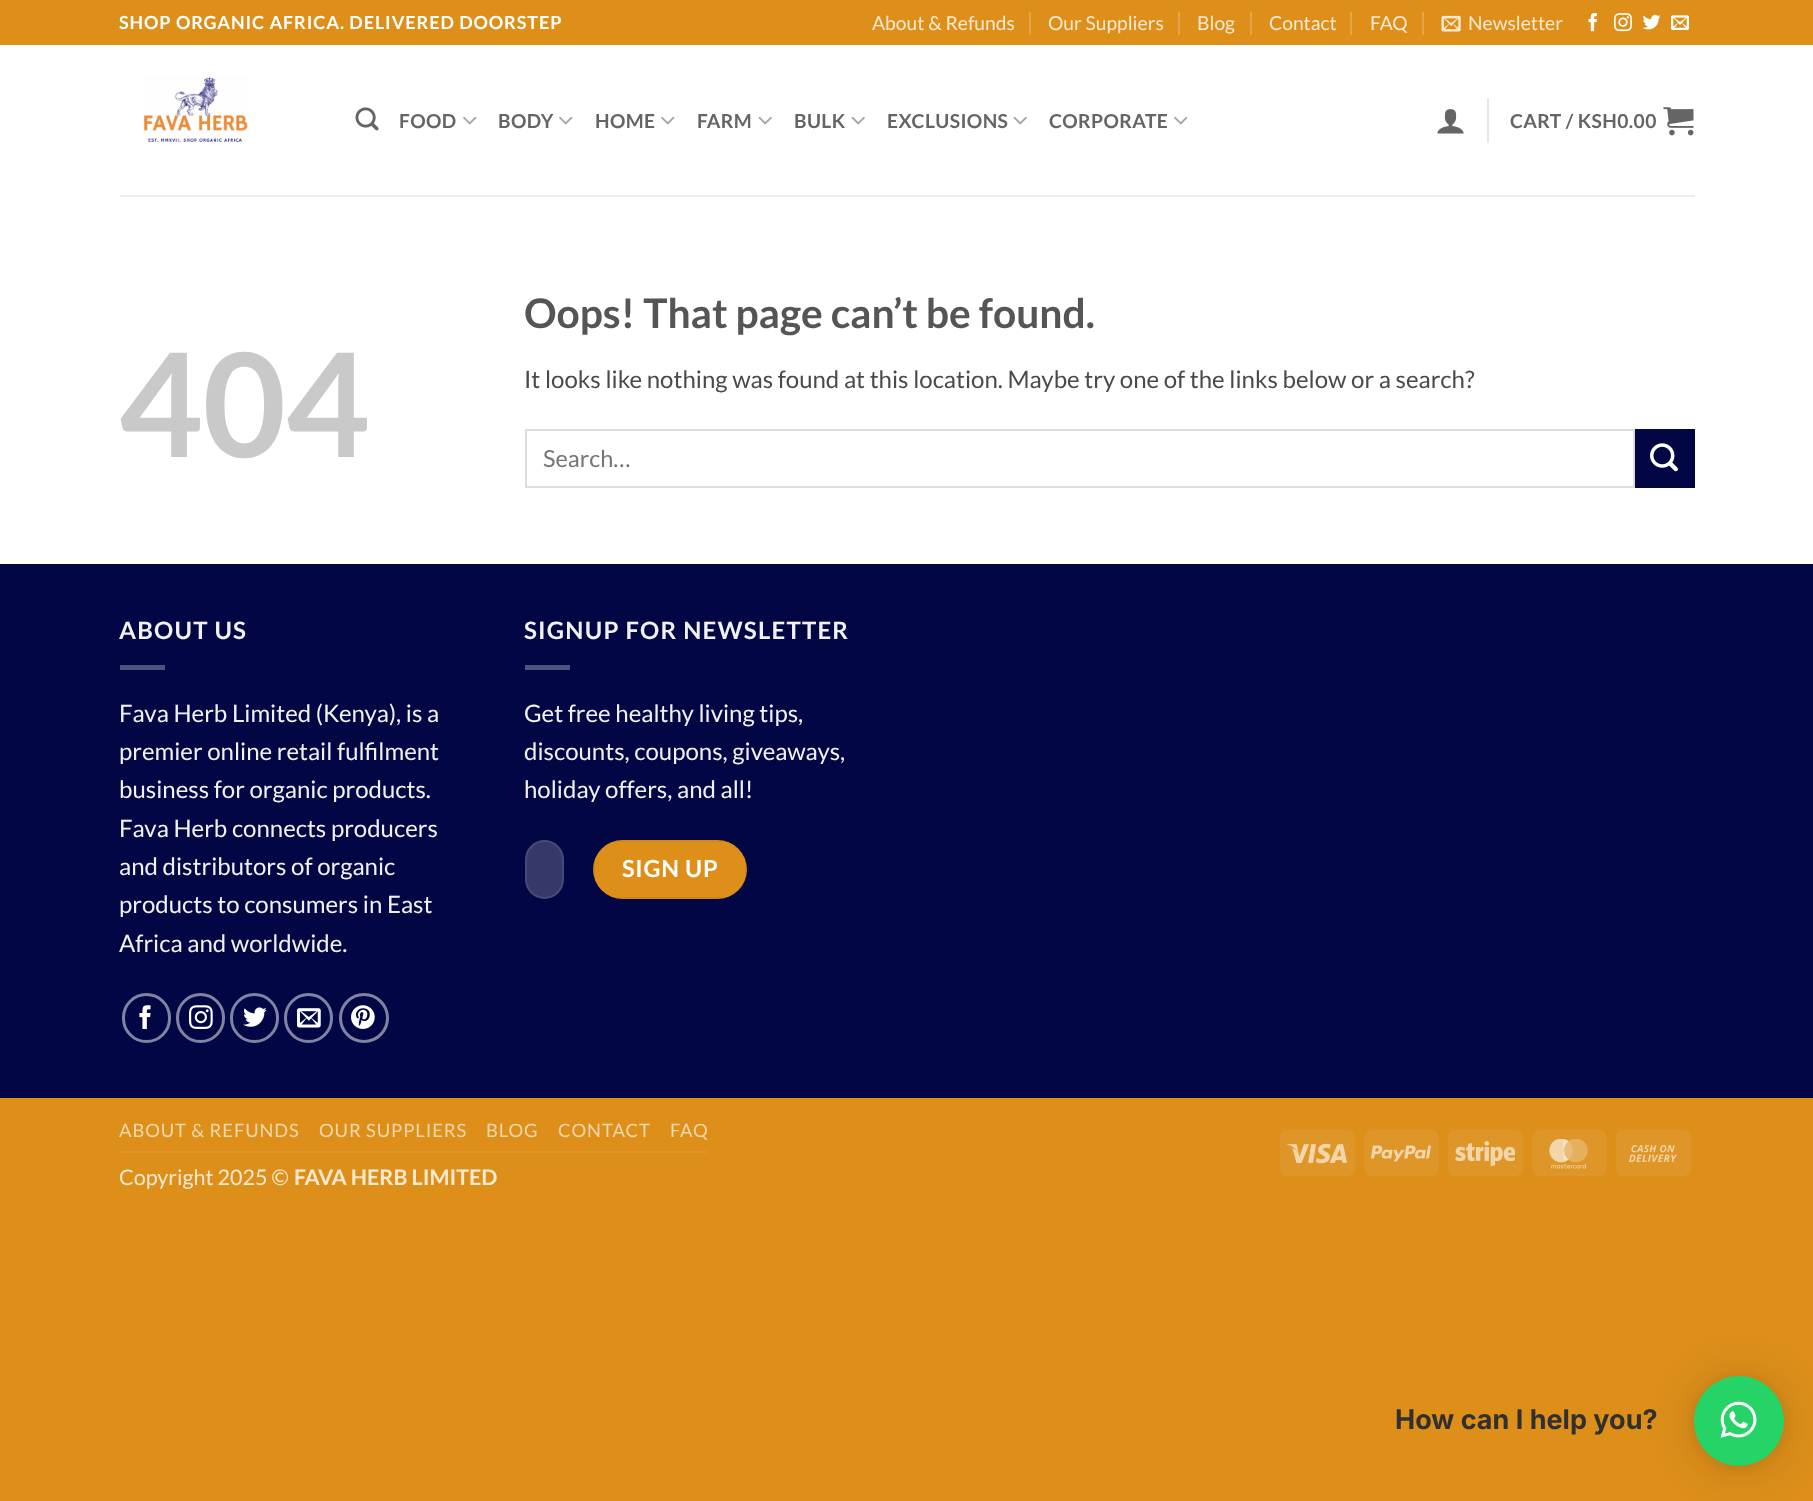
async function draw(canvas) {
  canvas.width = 1813;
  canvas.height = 1501;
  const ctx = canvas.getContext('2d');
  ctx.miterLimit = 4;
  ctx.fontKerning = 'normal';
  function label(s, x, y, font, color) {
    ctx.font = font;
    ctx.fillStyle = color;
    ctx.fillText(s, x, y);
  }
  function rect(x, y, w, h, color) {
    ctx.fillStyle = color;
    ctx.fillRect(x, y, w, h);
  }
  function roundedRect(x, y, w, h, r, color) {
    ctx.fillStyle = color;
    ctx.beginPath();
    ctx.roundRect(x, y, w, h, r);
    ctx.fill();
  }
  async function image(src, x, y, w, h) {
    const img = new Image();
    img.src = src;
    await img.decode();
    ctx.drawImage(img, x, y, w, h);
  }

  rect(0, 0, 1813, 1501, '#dd8f1a');
  rect(0, 45, 1813, 519, '#fff');
  ctx.letterSpacing = '0.9px';
  label('SHOP ORGANIC AFRICA. DELIVERED DOORSTEP', 119, 29, 'bold 18px Lato', '#fff');
  ctx.letterSpacing = '0px';
  label('About & Refunds', 872, 30, '19.25px Lato', '#f8e9d1');
  rect(1029, 12, 2, 23, '#e4a548');
  label('Our Suppliers', 1048, 30, '19.25px Lato', '#f8e9d1');
  rect(1178, 12, 2, 23, '#e4a548');
  label('Blog', 1197, 30, '19.25px Lato', '#f8e9d1');
  rect(1250, 12, 2, 23, '#e4a548');
  label('Contact', 1269, 30, '19.25px Lato', '#f8e9d1');
  rect(1350, 12, 2, 23, '#e4a548');
  label('FAQ', 1370, 30, '19.25px Lato', '#f8e9d1');
  rect(1422, 12, 2, 23, '#e4a548');
  await image('assets/img1.png', 1441, 15, 20, 17);
  label('Newsletter', 1468, 30, '19.25px Lato', '#f8e9d1');
  await image('assets/img2.png', 1588, 13, 9, 19);
  await image('assets/img3.png', 1614, 13, 18, 19);
  await image('assets/img4.png', 1642, 14, 19, 16);
  await image('assets/img5.png', 1671, 15, 18, 15);
  await image('assets/img6.png', 144, 76, 104, 66);
  await image('assets/img7.png', 355, 107, 24, 24);
  ctx.letterSpacing = '0.4px';
  label('FOOD', 399, 128, 'bold 19.25px Lato', '#656565');
  await image('assets/img8.png', 463, 116, 14, 9);
  label('BODY', 498, 128, 'bold 19.25px Lato', '#656565');
  await image('assets/img8.png', 559, 116, 14, 9);
  label('HOME', 595, 128, 'bold 19.25px Lato', '#656565');
  await image('assets/img8.png', 661, 116, 14, 9);
  label('FARM', 697, 128, 'bold 19.25px Lato', '#656565');
  await image('assets/img9.png', 758, 116, 14, 9);
  label('BULK', 794, 128, 'bold 19.25px Lato', '#656565');
  await image('assets/img9.png', 851, 116, 14, 9);
  label('EXCLUSIONS', 887, 128, 'bold 19.25px Lato', '#656565');
  await image('assets/img9.png', 1013, 116, 14, 9);
  label('CORPORATE', 1049, 128, 'bold 19.25px Lato', '#656565');
  await image('assets/img8.png', 1174, 116, 14, 9);
  await image('assets/img10.png', 1437, 109, 27, 25);
  rect(1487, 98, 2, 45, '#e6e6e6');
  label('CART / KSH0.00', 1510, 128, 'bold 19.25px Lato', '#656565');
  await image('assets/img11.png', 1663, 107, 31, 29);
  rect(120, 195, 1575, 2, '#ededed');
  ctx.letterSpacing = '0px';
  label('404', 119, 457, 'bold 144px Lato', '#c9c9c9');
  label('Oops! That page can’t be found.', 524, 328, 'bold 40.75px Lato', '#555');
  label('It looks like nothing was found at this location. Maybe try one of the links below or a search?', 524, 388, '24px Lato', '#4a4a4a');
  ctx.strokeStyle = '#ddd';
  ctx.lineWidth = 2;
  ctx.strokeRect(526, 430, 1108, 57);
  label('Search…', 543, 467, '23.5px Lato', '#757575');
  ctx.fillStyle = '#020644';
  ctx.beginPath();
  ctx.rect(1636, 430, 58, 57);
  ctx.fill();
  ctx.strokeStyle = '#020641';
  ctx.stroke();
  await image('assets/img12.png', 1650, 443, 28, 29);
  rect(0, 566, 1813, 532, '#020644');
  rect(0, 564, 1813, 2, '#020641');
  ctx.letterSpacing = '1.2px';
  label('ABOUT US', 119, 639, 'bold 24px Lato', '#f1f1f1');
  rect(120, 665, 45, 5, '#4e517c');
  ctx.letterSpacing = '0px';
  label('Fava Herb Limited (Kenya), is a', 119, 722, '24px Lato', '#f1f1f1');
  label('premier online retail fulfilment', 119, 760, '24px Lato', '#f1f1f1');
  label('business for organic products.', 119, 798, '24px Lato', '#f1f1f1');
  label('Fava Herb connects producers', 119, 837, '24px Lato', '#f1f1f1');
  label('and distributors of organic', 119, 875, '24px Lato', '#f1f1f1');
  label('products to consumers in East', 119, 913, '24px Lato', '#f1f1f1');
  label('Africa and worldwide.', 119, 952, '24px Lato', '#f1f1f1');
  ctx.beginPath();
  ctx.roundRect(123.5, 994.5, 46, 47, 23);
  ctx.strokeStyle = '#8183a2';
  ctx.lineWidth = 3;
  ctx.stroke();
  await image('assets/img13.png', 139, 1005, 12, 24);
  ctx.beginPath();
  ctx.roundRect(177.5, 994.5, 46, 47, 23);
  ctx.stroke();
  await image('assets/img14.png', 189, 1005, 24, 24);
  ctx.beginPath();
  ctx.roundRect(231.5, 994.5, 46, 47, 23);
  ctx.stroke();
  await image('assets/img15.png', 243, 1007, 24, 20);
  ctx.beginPath();
  ctx.roundRect(285.5, 994.5, 46, 47, 23);
  ctx.stroke();
  await image('assets/img16.png', 297, 1008, 24, 20);
  ctx.beginPath();
  ctx.arc(364, 1018, 23.5, 0, 2 * Math.PI);
  ctx.stroke();
  await image('assets/img17.png', 351, 1005, 24, 24);
  ctx.letterSpacing = '1.2px';
  label('SIGNUP FOR NEWSLETTER', 524, 639, 'bold 24px Lato', '#f1f1f1');
  rect(525, 665, 45, 5, '#4e517c');
  ctx.letterSpacing = '0px';
  label('Get free healthy living tips,', 524, 722, '24px Lato', '#f1f1f1');
  label('discounts, coupons, giveaways,', 524, 760, '24px Lato', '#f1f1f1');
  label('holiday offers, and all!', 524, 798, '24px Lato', '#f1f1f1');
  roundedRect(525, 840, 39, 59, 19.5, '#353869');
  ctx.beginPath();
  ctx.roundRect(526, 841, 37, 57, 18.5);
  ctx.strokeStyle = '#ffffff17';
  ctx.lineWidth = 2;
  ctx.stroke();
  roundedRect(593, 840, 154, 59, 29.5, '#dd8f1a');
  ctx.strokeStyle = '#0000000d';
  ctx.strokeRect(594, 841, 152, 57);
  ctx.letterSpacing = '0.75px';
  label('SIGN UP', 622, 877, 'bold 23.5px Lato', '#fff');
  rect(120, 1151, 588, 2, '#df9629');
  ctx.letterSpacing = '0.9px';
  label('ABOUT & REFUNDS', 119, 1137, '18.4px Lato', '#f3d7ac');
  label('OUR SUPPLIERS', 319, 1137, '18.4px Lato', '#f3d7ac');
  label('BLOG', 486, 1137, '18.4px Lato', '#f3d7ac');
  label('CONTACT', 558, 1137, '18.4px Lato', '#f3d7ac');
  label('FAQ', 670, 1137, '18.4px Lato', '#f3d7ac');
  ctx.letterSpacing = '0px';
  label('Copyright 2025 ©', 119, 1185, '21.5px Lato', '#f8e9d1');
  label('FAVA HERB LIMITED', 294, 1185, 'bold 21.5px Lato', '#f8e9d1');
  roundedRect(1280, 1130, 75, 46, 8, '#df9628');
  await image('assets/img18.png', 1287, 1143, 60, 21);
  roundedRect(1364, 1130, 75, 46, 8, '#df9628');
  await image('assets/img19.png', 1371, 1145, 60, 17);
  roundedRect(1448, 1130, 75, 46, 8, '#df9628');
  await image('assets/img20.png', 1455, 1141, 60, 25);
  roundedRect(1532, 1130, 75, 46, 8, '#df9628');
  await image('assets/img21.png', 1549, 1139, 39, 30);
  roundedRect(1616, 1130, 75, 46, 8, '#df9628');
  await image('assets/img22.png', 1629, 1145, 48, 17);
  ctx.fillStyle = '#00000029';
  ctx.filter = 'blur(24px)';
  ctx.beginPath();
  ctx.roundRect(1694, 1379, 90, 90, 45);
  ctx.fill();
  ctx.filter = 'none';
  ctx.fillStyle = '#0000000f';
  ctx.filter = 'blur(4.5px)';
  ctx.beginPath();
  ctx.roundRect(1694, 1377, 90, 90, 45);
  ctx.fill();
  ctx.filter = 'none';
  ctx.fillStyle = '#25d366';
  ctx.beginPath();
  ctx.arc(1739, 1421, 45, 0, 2 * Math.PI);
  ctx.fill();
  label('How can I help you?', 1395, 1429, 'bold 27px Inter', '#303030');
  await image('assets/img23.png', 1720, 1401, 37, 37);
}

draw(document.querySelector('canvas'));
